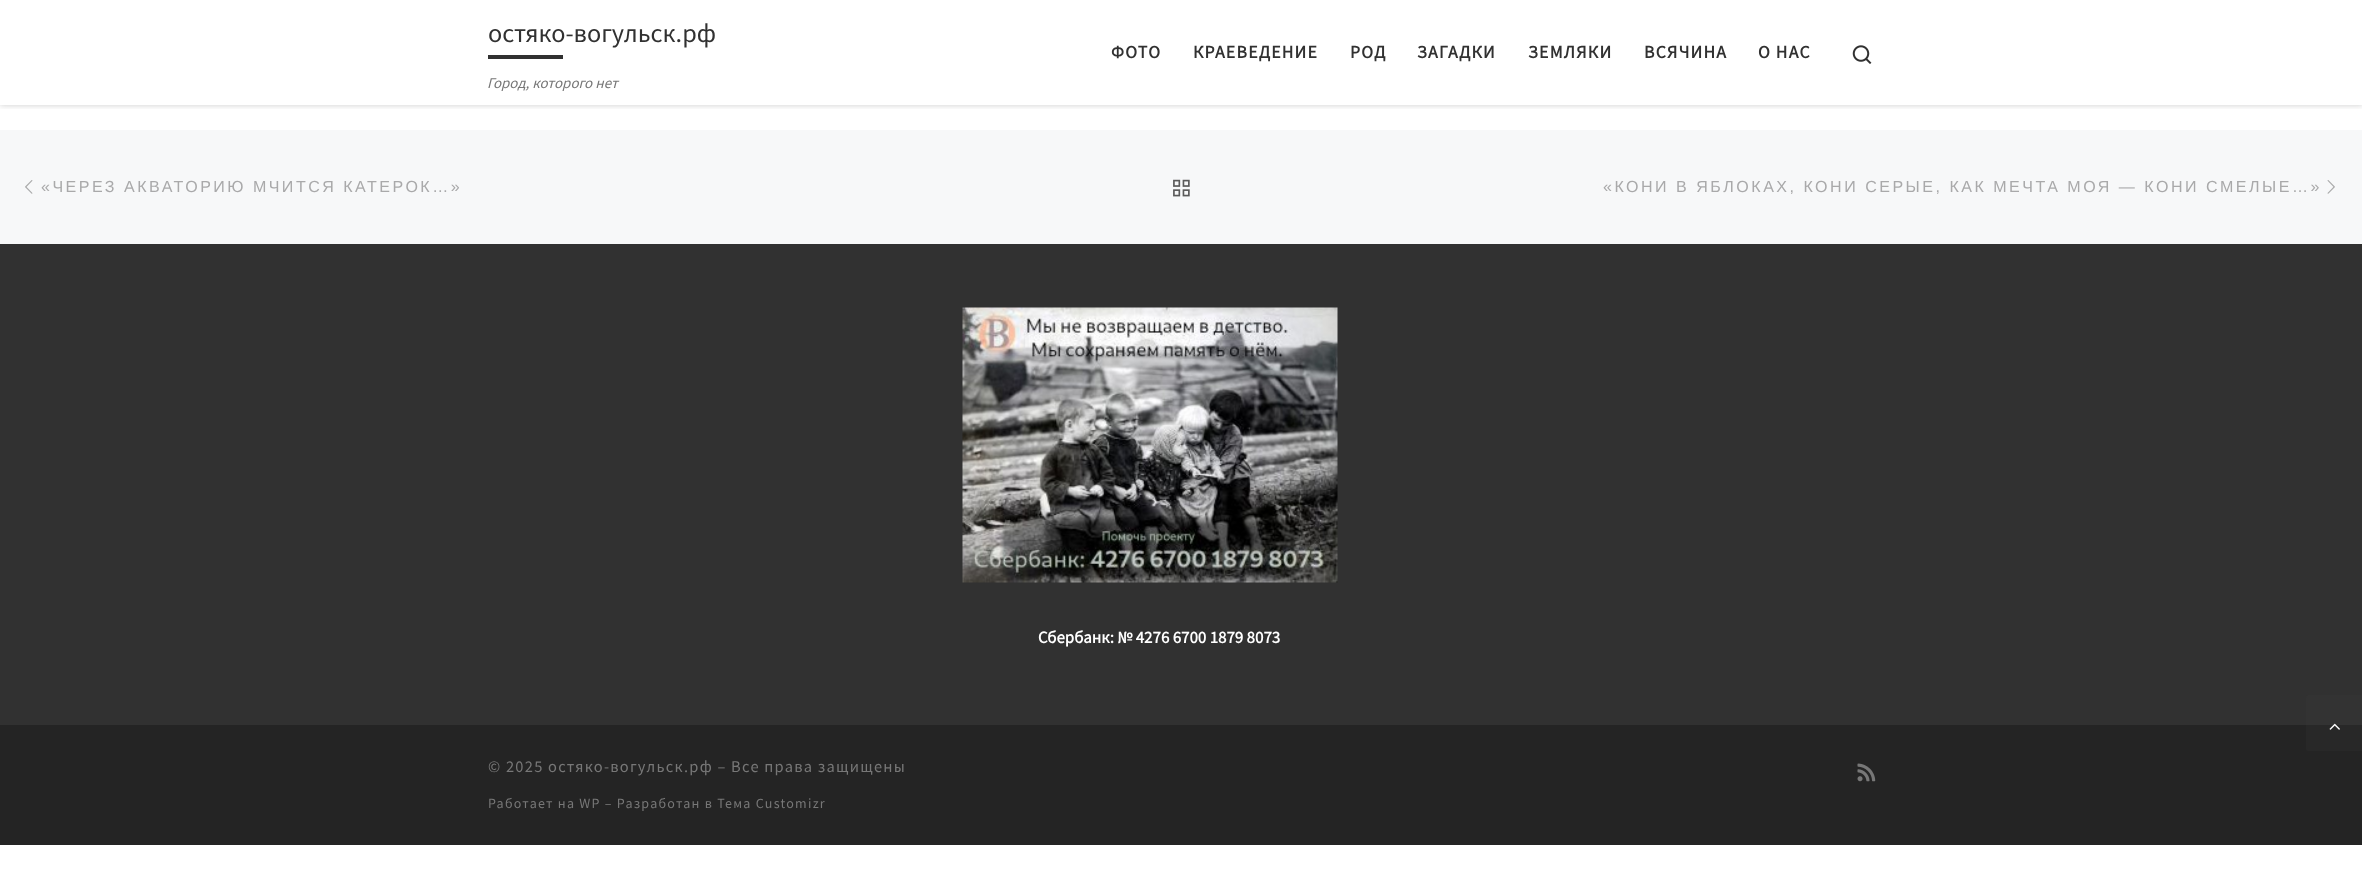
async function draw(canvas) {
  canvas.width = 2362;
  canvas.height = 876;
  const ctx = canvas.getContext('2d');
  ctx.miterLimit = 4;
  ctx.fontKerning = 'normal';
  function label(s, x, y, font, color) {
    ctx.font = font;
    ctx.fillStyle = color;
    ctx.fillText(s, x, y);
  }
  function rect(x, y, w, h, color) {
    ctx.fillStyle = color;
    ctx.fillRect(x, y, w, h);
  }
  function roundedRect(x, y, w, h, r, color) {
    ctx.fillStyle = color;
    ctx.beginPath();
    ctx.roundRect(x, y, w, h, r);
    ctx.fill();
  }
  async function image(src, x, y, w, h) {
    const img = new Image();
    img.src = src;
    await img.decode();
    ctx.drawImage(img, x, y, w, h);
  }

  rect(0, 0, 2362, 876, '#fff');
  ctx.save();
  ctx.beginPath();
  ctx.rect(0, 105, 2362, 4);
  ctx.clip();
  ctx.fillStyle = '#00000033';
  ctx.filter = 'blur(3px)';
  ctx.beginPath();
  ctx.rect(0, 0, 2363, 105);
  ctx.fill();
  ctx.filter = 'none';
  ctx.restore();
  label('остяко-вогульск.рф', 488, 42, '26.25px Source Sans Pro', '#313131');
  rect(488, 55, 75, 4, '#313131');
  label('Город, которого нет', 487, 88, 'italic 15px Source Sans Pro', '#777');
  ctx.letterSpacing = '1.25px';
  label('ФОТО', 1111, 58, 'bold 17.75px Source Sans Pro', '#313131');
  label('КРАЕВЕДЕНИЕ', 1193, 58, 'bold 17.75px Source Sans Pro', '#313131');
  label('РОД', 1350, 58, 'bold 17.75px Source Sans Pro', '#313131');
  label('ЗАГАДКИ', 1417, 58, 'bold 17.75px Source Sans Pro', '#313131');
  label('ЗЕМЛЯКИ', 1528, 58, 'bold 17.75px Source Sans Pro', '#313131');
  label('ВСЯЧИНА', 1644, 58, 'bold 17.75px Source Sans Pro', '#313131');
  label('О НАС', 1758, 58, 'bold 17.75px Source Sans Pro', '#313131');
  await image('assets/img1.png', 1852, 45, 20, 19);
  rect(0, 130, 2362, 114, '#f7f8f9');
  await image('assets/img2.png', 25, 180, 8, 14);
  ctx.letterSpacing = '2.5px';
  label('«ЧЕРЕЗ АКВАТОРИЮ МЧИТСЯ КАТЕРОК…»', 41, 192, '16.05px Liberation Sans', '#a9a9aa');
  await image('assets/img3.png', 1173, 179, 17, 18);
  label('«КОНИ В ЯБЛОКАХ, КОНИ СЕРЫЕ, КАК МЕЧТА МОЯ — КОНИ СМЕЛЫЕ…»', 1603, 192, '16.05px Liberation Sans', '#a9a9aa');
  await image('assets/img4.png', 2327, 180, 8, 14);
  rect(0, 244, 2362, 481, '#313131');
  await image('assets/img5.png', 962, 307, 376, 276);
  ctx.letterSpacing = '0px';
  label('Сбербанк: № 4276 6700 1879 8073', 1038, 643, 'bold 16.9px Source Sans Pro', '#fff');
  rect(0, 725, 2362, 120, '#242424');
  ctx.letterSpacing = '1.25px';
  label('© 2025 остяко-вогульск.рф – Все права защищены', 488, 772, '16.4px Source Sans Pro', '#777');
  label('Работает на WP – Разработан в Тема Customizr', 488, 808, '14px Source Sans Pro', '#777');
  await image('assets/img6.png', 1857, 763, 19, 19);
  roundedRect(2306, 695, 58, 56, 2.5, '#3b3b3b33');
  await image('assets/img7.png', 2329, 723, 11, 7);
}

draw(document.querySelector('canvas'));
